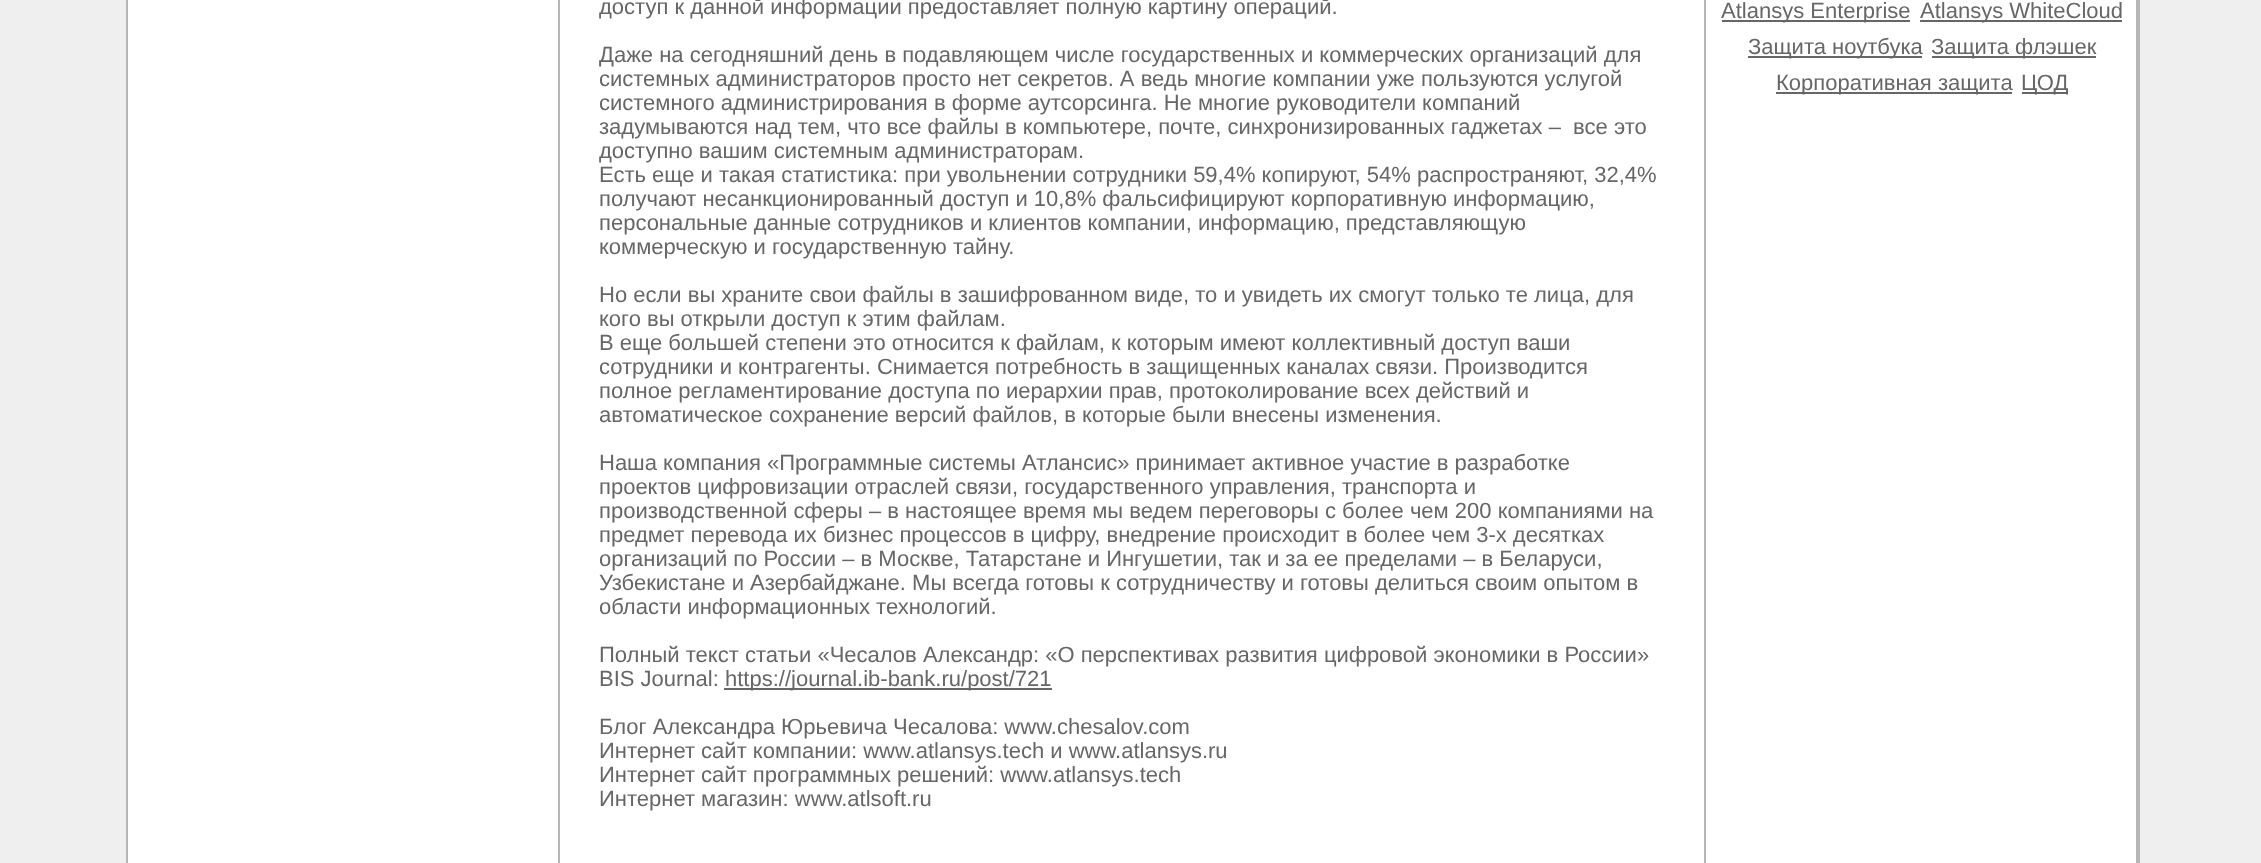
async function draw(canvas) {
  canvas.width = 2261;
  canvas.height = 863;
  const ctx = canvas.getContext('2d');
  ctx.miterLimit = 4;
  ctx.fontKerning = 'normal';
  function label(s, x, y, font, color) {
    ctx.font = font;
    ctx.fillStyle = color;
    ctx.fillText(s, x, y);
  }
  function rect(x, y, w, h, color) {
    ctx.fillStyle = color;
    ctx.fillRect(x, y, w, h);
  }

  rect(0, 0, 2261, 863, '#fff');
  rect(0, 0, 126, 863, '#efefef');
  rect(126, 0, 2, 863, '#b6b6b6');
  rect(558, 0, 2, 863, '#b6b6b6');
  label('доступ к данной информации предоставляет полную картину операций.', 599, 14, '22px Liberation Sans', '#666');
  label('Даже на сегодняшний день в подавляющем числе государственных и коммерческих организаций для', 599, 62, '22px Liberation Sans', '#666');
  label('системных администраторов просто нет секретов. А ведь многие компании уже пользуются услугой', 599, 86, '22px Liberation Sans', '#666');
  label('системного администрирования в форме аутсорсинга. Не многие руководители компаний', 599, 110, '22px Liberation Sans', '#666');
  label('задумываются над тем, что все файлы в компьютере, почте, синхронизированных гаджетах –  все это', 599, 134, '22px Liberation Sans', '#666');
  label('доступно вашим системным администраторам.', 599, 158, '22px Liberation Sans', '#666');
  label('Есть еще и такая статистика: при увольнении сотрудники 59,4% копируют, 54% распространяют, 32,4%', 599, 182, '22px Liberation Sans', '#666');
  label('получают несанкционированный доступ и 10,8% фальсифицируют корпоративную информацию,', 599, 206, '22px Liberation Sans', '#666');
  label('персональные данные сотрудников и клиентов компании, информацию, представляющую', 599, 230, '22px Liberation Sans', '#666');
  label('коммерческую и государственную тайну.', 599, 254, '22px Liberation Sans', '#666');
  label('Но если вы храните свои файлы в зашифрованном виде, то и увидеть их смогут только те лица, для', 599, 302, '22px Liberation Sans', '#666');
  label('кого вы открыли доступ к этим файлам.', 599, 326, '22px Liberation Sans', '#666');
  label('В еще большей степени это относится к файлам, к которым имеют коллективный доступ ваши', 599, 350, '22px Liberation Sans', '#666');
  label('сотрудники и контрагенты. Снимается потребность в защищенных каналах связи. Производится', 599, 374, '22px Liberation Sans', '#666');
  label('полное регламентирование доступа по иерархии прав, протоколирование всех действий и', 599, 398, '22px Liberation Sans', '#666');
  label('автоматическое сохранение версий файлов, в которые были внесены изменения.', 599, 422, '22px Liberation Sans', '#666');
  label('Наша компания «Программные системы Атлансис» принимает активное участие в разработке', 599, 470, '22px Liberation Sans', '#666');
  label('проектов цифровизации отраслей связи, государственного управления, транспорта и', 599, 494, '22px Liberation Sans', '#666');
  label('производственной сферы – в настоящее время мы ведем переговоры с более чем 200 компаниями на', 599, 518, '22px Liberation Sans', '#666');
  label('предмет перевода их бизнес процессов в цифру, внедрение происходит в более чем 3-х десятках', 599, 542, '22px Liberation Sans', '#666');
  label('организаций по России – в Москве, Татарстане и Ингушетии, так и за ее пределами – в Беларуси,', 599, 566, '22px Liberation Sans', '#666');
  label('Узбекистане и Азербайджане. Мы всегда готовы к сотрудничеству и готовы делиться своим опытом в', 599, 590, '22px Liberation Sans', '#666');
  label('области информационных технологий.', 599, 614, '22px Liberation Sans', '#666');
  label('Полный текст статьи «Чесалов Александр: «О перспективах развития цифровой экономики в России»', 599, 662, '22px Liberation Sans', '#666');
  label('BIS Journal:', 599, 686, '22px Liberation Sans', '#666');
  rect(724, 688, 328, 2, '#666');
  label('https://journal.ib-bank.ru/post/721', 725, 686, '22px Liberation Sans', '#666');
  label('Блог Александра Юрьевича Чесалова: www.chesalov.com', 599, 734, '22px Liberation Sans', '#666');
  label('Интернет сайт компании: www.atlansys.tech и www.atlansys.ru', 599, 758, '22px Liberation Sans', '#666');
  label('Интернет сайт программных решений: www.atlansys.tech', 599, 782, '22px Liberation Sans', '#666');
  label('Интернет магазин: www.atlsoft.ru', 599, 806, '22px Liberation Sans', '#666');
  rect(1704, 0, 2, 863, '#b6b6b6');
  rect(1722, 20, 188, 2, '#666');
  label('Atlansys Enterprise', 1721, 18, '22px Liberation Sans', '#666');
  rect(1920, 20, 202, 2, '#666');
  label('Atlansys WhiteCloud', 1920, 18, '22px Liberation Sans', '#666');
  rect(1748, 56, 174, 2, '#666');
  label('Защита ноутбука', 1748, 54, '22px Liberation Sans', '#666');
  rect(1932, 56, 164, 2, '#666');
  label('Защита флэшек', 1931, 54, '22px Liberation Sans', '#666');
  rect(1776, 92, 236, 2, '#666');
  label('Корпоративная защита', 1776, 90, '22px Liberation Sans', '#666');
  rect(2022, 92, 46, 2, '#666');
  label('ЦОД', 2021, 90, '22px Liberation Sans', '#666');
  rect(2140, 0, 121, 863, '#efefef');
  rect(2136, 0, 4, 863, '#b6b6b6');
}

draw(document.querySelector('canvas'));
